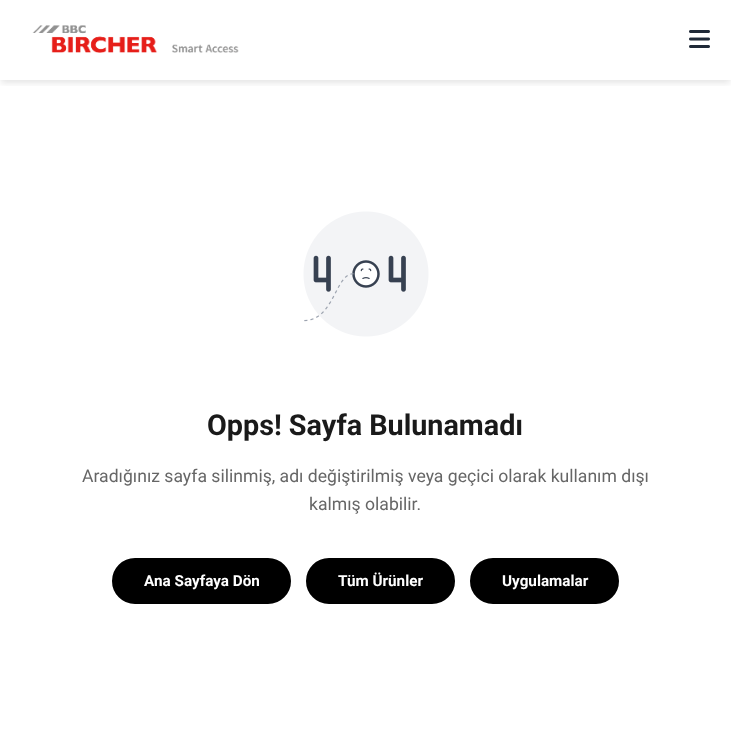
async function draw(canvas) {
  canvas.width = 731;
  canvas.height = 750;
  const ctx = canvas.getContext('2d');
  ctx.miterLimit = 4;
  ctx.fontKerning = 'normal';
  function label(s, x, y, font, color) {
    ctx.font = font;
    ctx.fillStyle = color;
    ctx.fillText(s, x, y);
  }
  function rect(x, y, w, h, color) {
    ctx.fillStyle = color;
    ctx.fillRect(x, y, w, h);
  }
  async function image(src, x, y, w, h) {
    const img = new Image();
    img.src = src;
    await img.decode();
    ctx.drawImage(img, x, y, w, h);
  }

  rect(0, 0, 731, 750, '#fff');
  ctx.save();
  ctx.beginPath();
  ctx.rect(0, 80, 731, 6);
  ctx.clip();
  ctx.fillStyle = '#0000001a';
  ctx.filter = 'blur(3px)';
  ctx.beginPath();
  ctx.rect(1, 5, 729, 78);
  ctx.fill();
  ctx.filter = 'none';
  ctx.restore();
  await image('assets/img1.png', 32, 25, 207, 28);
  await image('assets/img2.png', 689, 30, 21, 18);
  await image('assets/img3.png', 303, 211, 126, 126);
  label('Opps! Sayfa Bulunamadı', 207, 435, 'bold 28.75px Roboto', '#1a1a1a');
  label('Aradığınız sayfa silinmiş, adı değiştirilmiş veya geçici olarak kullanım dışı', 82, 482, '17.6px Roboto', '#666');
  label('kalmış olabilir.', 309, 510, '17.6px Roboto', '#666');
  ctx.fillStyle = '#000';
  ctx.beginPath();
  ctx.roundRect(113, 559, 177, 44, 22);
  ctx.fill();
  ctx.strokeStyle = '#000';
  ctx.lineWidth = 2;
  ctx.stroke();
  label('Ana Sayfaya Dön', 144, 586, 'bold 15.25px Roboto', '#fff');
  ctx.fillStyle = '#000';
  ctx.beginPath();
  ctx.roundRect(307, 559, 147, 44, 22);
  ctx.fill();
  ctx.stroke();
  label('Tüm Ürünler', 338, 586, 'bold 15.25px Roboto', '#fff');
  ctx.fillStyle = '#000';
  ctx.beginPath();
  ctx.roundRect(471, 559, 147, 44, 22);
  ctx.fill();
  ctx.stroke();
  label('Uygulamalar', 502, 586, 'bold 15.25px Roboto', '#fff');
}

draw(document.querySelector('canvas'));
